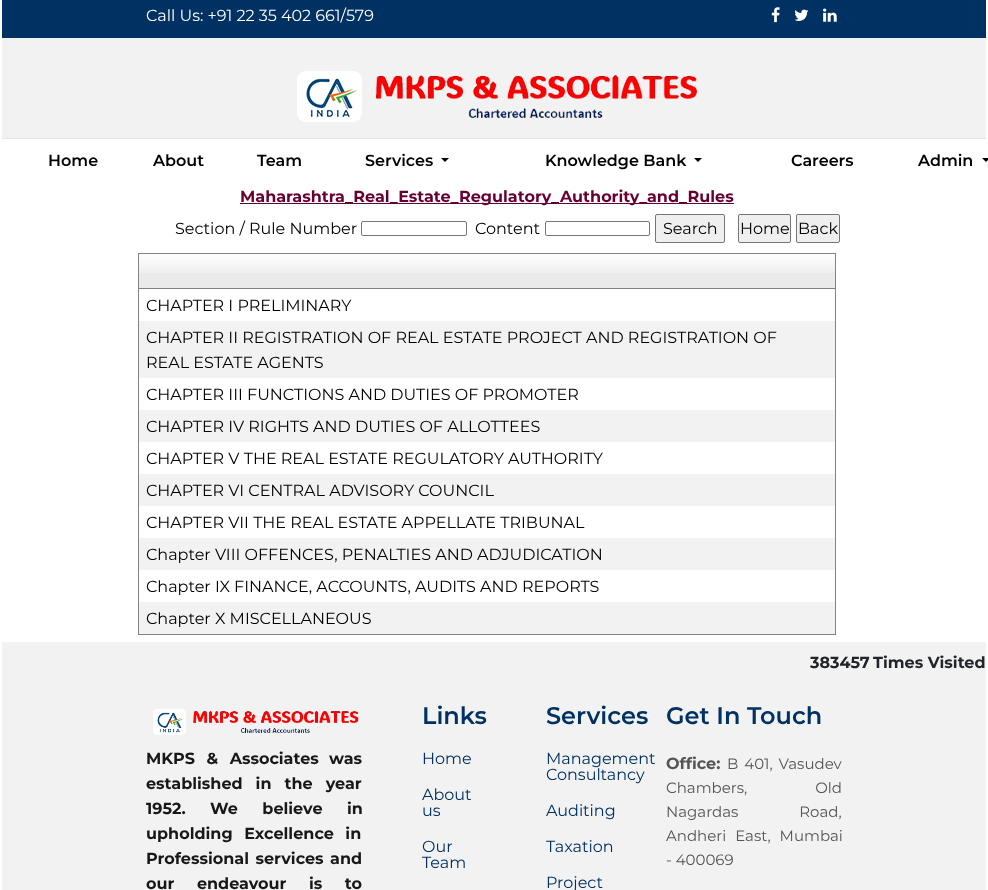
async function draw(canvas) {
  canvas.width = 988;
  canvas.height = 890;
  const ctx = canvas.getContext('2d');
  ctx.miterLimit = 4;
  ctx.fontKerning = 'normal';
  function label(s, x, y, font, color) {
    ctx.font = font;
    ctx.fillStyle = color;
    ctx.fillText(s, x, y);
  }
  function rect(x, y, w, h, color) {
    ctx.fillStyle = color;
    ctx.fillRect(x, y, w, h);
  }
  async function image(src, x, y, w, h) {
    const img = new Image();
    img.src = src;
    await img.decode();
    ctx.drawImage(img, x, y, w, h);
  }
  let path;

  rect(0, 0, 988, 890, '#fff');
  rect(2, 0, 984, 38, '#003163');
  label('Call Us: +91 22 35 402 661/579', 146, 21, '16px Montserrat', '#fff');
  await image('assets/img1.png', 771, 7, 9, 16);
  await image('assets/img2.png', 794, 9, 15, 12);
  await image('assets/img3.png', 823, 8, 14, 14);
  rect(2, 38, 984, 100, '#f2f2f2');
  await image('assets/img4.png', 297, 71, 401, 51);
  rect(2, 138, 984, 1, '#e7e7e7');
  label('Home', 48, 166, '600 16px Montserrat', '#000');
  label('About', 153, 166, '600 16px Montserrat', '#000');
  label('Team', 257, 166, '600 16px Montserrat', '#000');
  label('Services', 365, 166, '600 16px Montserrat', '#000');
  path = new Path2D('M441 158H449L445 162Z');
  ctx.fill(path);
  label('Knowledge Bank', 545, 166, '600 16px Montserrat', '#000');
  path = new Path2D('M694 158H702L698 162Z');
  ctx.fill(path);
  label('Careers', 791, 166, '600 16px Montserrat', '#000');
  label('Admin', 918, 166, '600 16px Montserrat', '#000');
  path = new Path2D('M982 158H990L986 162Z');
  ctx.fill(path);
  rect(240, 203, 494, 1, '#603');
  label('Maharashtra_Real_Estate_Regulatory_Authority_and_Rules', 240, 202, 'bold 16px Montserrat', '#603');
  label('Section / Rule Number', 175, 234, '16px Montserrat', '#000');
  ctx.beginPath();
  ctx.roundRect(361.5, 221.5, 105, 14, 1.5);
  ctx.strokeStyle = '#767676';
  ctx.stroke();
  label('Content', 475, 234, '16px Montserrat', '#000');
  ctx.beginPath();
  ctx.roundRect(545.5, 221.5, 104, 14, 1.5);
  ctx.stroke();
  ctx.fillStyle = '#efefef';
  ctx.beginPath();
  ctx.roundRect(655.5, 214.5, 69, 28, 1.5);
  ctx.fill();
  ctx.stroke();
  label('Search', 663, 234, '16px Montserrat', '#000');
  ctx.fillStyle = '#efefef';
  ctx.beginPath();
  ctx.roundRect(738.5, 214.5, 52, 28, 1.5);
  ctx.fill();
  ctx.stroke();
  label('Home', 740, 234, '16px Montserrat', '#000');
  ctx.fillStyle = '#efefef';
  ctx.beginPath();
  ctx.roundRect(796.5, 214.5, 43, 28, 1.5);
  ctx.fill();
  ctx.stroke();
  label('Back', 798, 234, '16px Montserrat', '#000');
  ctx.strokeStyle = '#828282';
  ctx.strokeRect(138.5, 253.5, 697, 381);
  rect(139, 273, 696, 15, '#eaeaea');
  await image('assets/img5.png', 139, 254, 696, 19);
  rect(139, 288, 696, 1, '#828282');
  label('CHAPTER I PRELIMINARY', 146, 311, '16px Montserrat', '#000');
  rect(139, 321, 696, 57, '#f2f2f2');
  label('CHAPTER II REGISTRATION OF REAL ESTATE PROJECT AND REGISTRATION OF', 146, 343, '16px Montserrat', '#000');
  label('REAL ESTATE AGENTS', 146, 368, '16px Montserrat', '#000');
  label('CHAPTER III FUNCTIONS AND DUTIES OF PROMOTER', 146, 400, '16px Montserrat', '#000');
  rect(139, 410, 696, 32, '#f2f2f2');
  label('CHAPTER IV RIGHTS AND DUTIES OF ALLOTTEES', 146, 432, '16px Montserrat', '#000');
  label('CHAPTER V THE REAL ESTATE REGULATORY AUTHORITY', 146, 464, '16px Montserrat', '#000');
  rect(139, 474, 696, 32, '#f2f2f2');
  label('CHAPTER VI CENTRAL ADVISORY COUNCIL', 146, 496, '16px Montserrat', '#000');
  label('CHAPTER VII THE REAL ESTATE APPELLATE TRIBUNAL', 146, 528, '16px Montserrat', '#000');
  rect(139, 538, 696, 32, '#f2f2f2');
  label('Chapter VIII OFFENCES, PENALTIES AND ADJUDICATION', 146, 560, '16px Montserrat', '#000');
  label('Chapter IX FINANCE, ACCOUNTS, AUDITS AND REPORTS', 146, 592, '16px Montserrat', '#000');
  rect(139, 602, 696, 32, '#f2f2f2');
  label('Chapter X MISCELLANEOUS', 146, 624, '16px Montserrat', '#000');
  rect(2, 642, 984, 248, '#f2f2f2');
  label('383457', 810, 668, 'bold 16px Montserrat', '#212529');
  label('Times Visited', 873, 668, 'bold 16px Montserrat', '#212529');
  await image('assets/img6.png', 153, 709, 206, 26);
  ctx.wordSpacing = '7px';
  label('MKPS & Associates', 146, 764, 'bold 16px Montserrat', '#181818');
  ctx.wordSpacing = '0px';
  label('was', 329, 764, 'bold 16px Montserrat', '#181818');
  ctx.wordSpacing = '8.5px';
  label('established in the year', 146, 789, 'bold 16px Montserrat', '#181818');
  ctx.wordSpacing = '0px';
  label('1952.', 146, 814, 'bold 16px Montserrat', '#181818');
  ctx.wordSpacing = '20px';
  label('We believe in', 210, 814, 'bold 16px Montserrat', '#181818');
  ctx.wordSpacing = '7px';
  label('upholding Excellence in', 146, 839, 'bold 16px Montserrat', '#181818');
  ctx.wordSpacing = '2px';
  label('Professional services and', 146, 864, 'bold 16px Montserrat', '#181818');
  ctx.wordSpacing = '18px';
  label('our endeavour is to', 146, 889, 'bold 16px Montserrat', '#181818');
  ctx.wordSpacing = '0px';
  label('Links', 422, 724, '600 24px Montserrat', '#003163');
  label('Home', 422, 764, '16px Montserrat', '#003163');
  label('About', 422, 800, '16px Montserrat', '#003163');
  label('us', 422, 816, '16px Montserrat', '#003163');
  label('Our', 422, 852, '16px Montserrat', '#003163');
  label('Team', 422, 868, '16px Montserrat', '#003163');
  label('Services', 546, 724, '600 24px Montserrat', '#003163');
  label('Management', 546, 764, '16px Montserrat', '#003163');
  label('Consultancy', 546, 780, '16px Montserrat', '#003163');
  label('Auditing', 546, 816, '16px Montserrat', '#003163');
  label('Taxation', 546, 852, '16px Montserrat', '#003163');
  label('Project', 546, 888, '16px Montserrat', '#003163');
  label('Get In Touch', 666, 724, '600 24px Montserrat', '#003163');
  label('Office:', 666, 769, 'bold 16px Montserrat', '#555');
  ctx.wordSpacing = '2px';
  label('B 401, Vasudev', 727, 769, '15px Montserrat', '#555');
  ctx.wordSpacing = '64px';
  label('Chambers, Old', 666, 793, '15px Montserrat', '#555');
  ctx.wordSpacing = '57px';
  label('Nagardas Road,', 666, 817, '15px Montserrat', '#555');
  ctx.wordSpacing = '5px';
  label('Andheri East, Mumbai', 666, 841, '15px Montserrat', '#555');
  ctx.wordSpacing = '0px';
  label('- 400069', 666, 865, '15px Montserrat', '#555');
}

draw(document.querySelector('canvas'));
